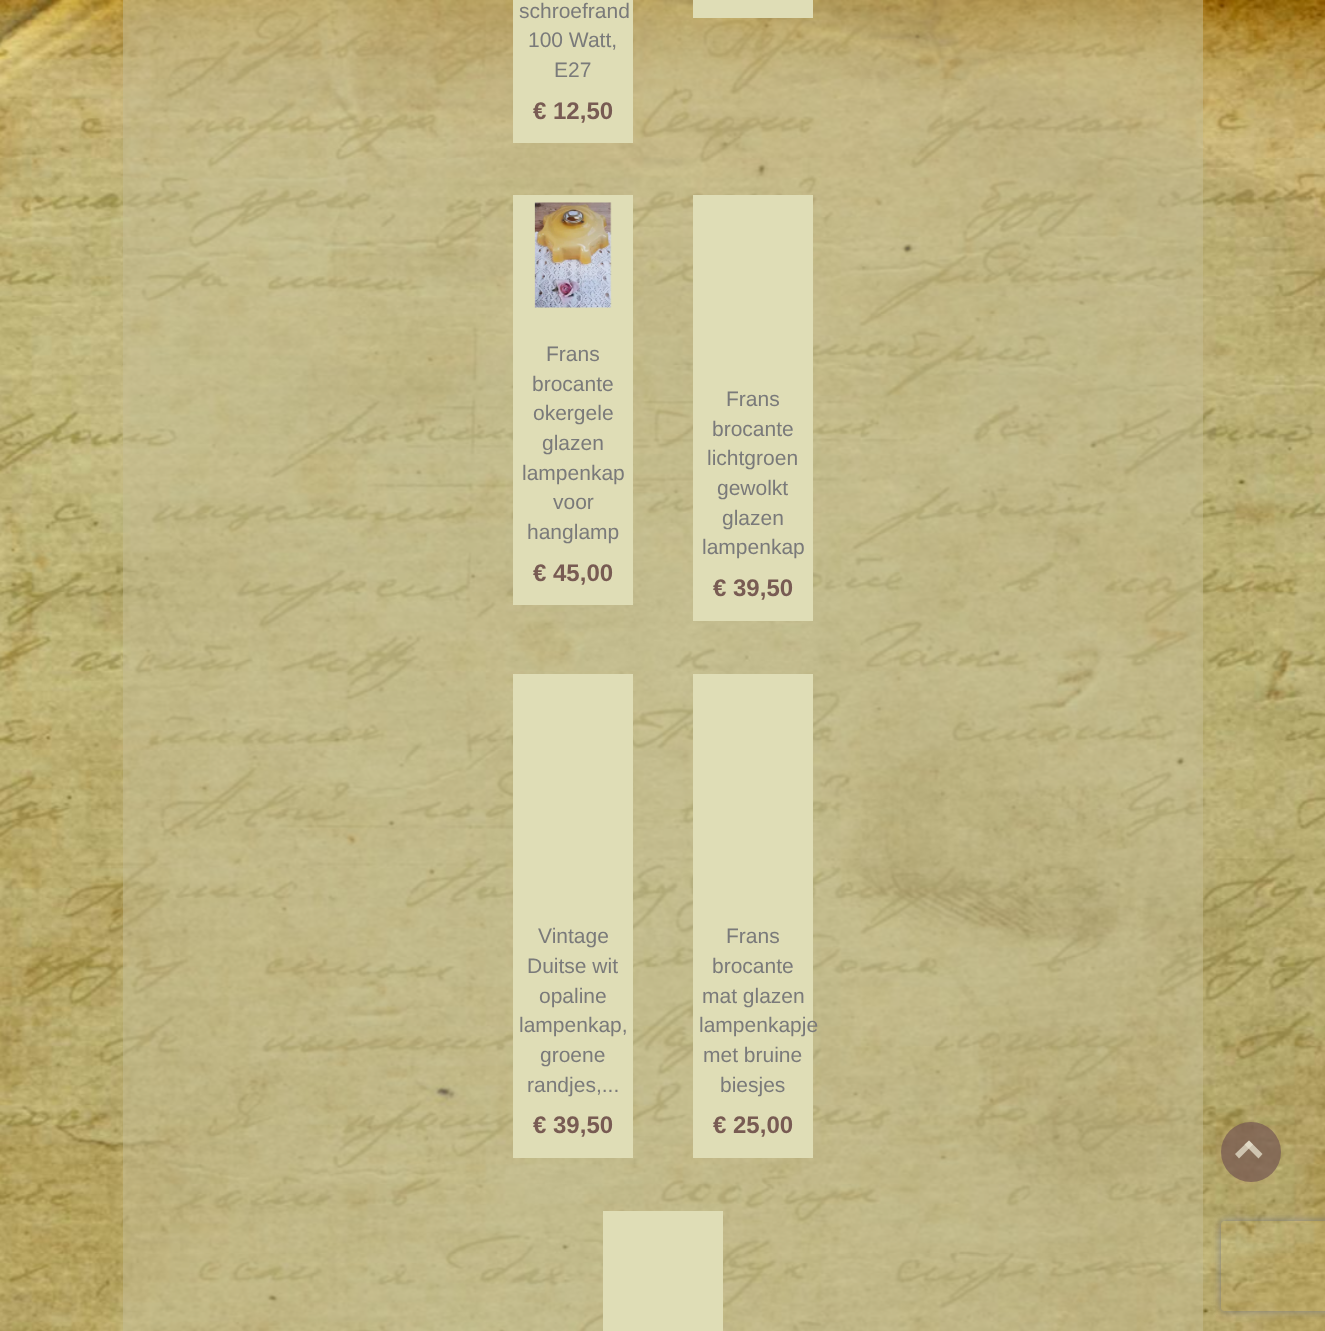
async function draw(canvas) {
  canvas.width = 1325;
  canvas.height = 1331;
  const ctx = canvas.getContext('2d');
  ctx.miterLimit = 4;
  ctx.fontKerning = 'normal';
  function label(s, x, y, font, color) {
    ctx.font = font;
    ctx.fillStyle = color;
    ctx.fillText(s, x, y);
  }
  function rect(x, y, w, h, color) {
    ctx.fillStyle = color;
    ctx.fillRect(x, y, w, h);
  }
  async function image(src, x, y, w, h) {
    const img = new Image();
    img.src = src;
    await img.decode();
    ctx.drawImage(img, x, y, w, h);
  }
  let path;

  rect(0, 0, 1325, 1331, '#fff');
  await image('assets/img1.png', 0, 0, 1325, 1331);
  rect(123, 0, 1080, 1331, '#c5bd9680');
  rect(513, 0, 120, 143, '#dfddb6');
  label('schroefrand', 519, 18, '21px Liberation Sans', '#7a7a7a');
  label('100 Watt,', 528, 47, '21px Liberation Sans', '#7a7a7a');
  label('E27', 554, 77, '21px Liberation Sans', '#7a7a7a');
  label('€ 12,50', 533, 119, 'bold 24px Liberation Sans', '#785b53');
  rect(693, 0, 120, 18, '#dfddb6');
  rect(513, 195, 120, 410, '#dfddb6');
  await image('assets/img2.png', 534, 202, 78, 106);
  label('Frans', 546, 361, '21px Liberation Sans', '#7a7a7a');
  label('brocante', 532, 391, '21px Liberation Sans', '#7a7a7a');
  label('okergele', 533, 420, '21px Liberation Sans', '#7a7a7a');
  label('glazen', 542, 450, '21px Liberation Sans', '#7a7a7a');
  label('lampenkap', 522, 480, '21px Liberation Sans', '#7a7a7a');
  label('voor', 553, 509, '21px Liberation Sans', '#7a7a7a');
  label('hanglamp', 527, 539, '21px Liberation Sans', '#7a7a7a');
  label('€ 45,00', 533, 581, 'bold 24px Liberation Sans', '#785b53');
  rect(693, 195, 120, 426, '#dfddb6');
  label('Frans', 726, 406, '21px Liberation Sans', '#7a7a7a');
  label('brocante', 712, 436, '21px Liberation Sans', '#7a7a7a');
  label('lichtgroen', 707, 465, '21px Liberation Sans', '#7a7a7a');
  label('gewolkt', 717, 495, '21px Liberation Sans', '#7a7a7a');
  label('glazen', 722, 525, '21px Liberation Sans', '#7a7a7a');
  label('lampenkap', 702, 554, '21px Liberation Sans', '#7a7a7a');
  label('€ 39,50', 713, 596, 'bold 24px Liberation Sans', '#785b53');
  rect(513, 674, 120, 484, '#dfddb6');
  label('Vintage', 538, 943, '21px Liberation Sans', '#7a7a7a');
  label('Duitse wit', 527, 973, '21px Liberation Sans', '#7a7a7a');
  label('opaline', 539, 1003, '21px Liberation Sans', '#7a7a7a');
  label('lampenkap,', 519, 1032, '21px Liberation Sans', '#7a7a7a');
  label('groene', 540, 1062, '21px Liberation Sans', '#7a7a7a');
  label('randjes,...', 527, 1092, '21px Liberation Sans', '#7a7a7a');
  label('€ 39,50', 533, 1133, 'bold 24px Liberation Sans', '#785b53');
  rect(693, 674, 120, 484, '#dfddb6');
  label('Frans', 726, 943, '21px Liberation Sans', '#7a7a7a');
  label('brocante', 712, 973, '21px Liberation Sans', '#7a7a7a');
  label('mat glazen', 702, 1003, '21px Liberation Sans', '#7a7a7a');
  label('lampenkapje', 699, 1032, '21px Liberation Sans', '#7a7a7a');
  label('met bruine', 703, 1062, '21px Liberation Sans', '#7a7a7a');
  label('biesjes', 720, 1092, '21px Liberation Sans', '#7a7a7a');
  label('€ 25,00', 713, 1133, 'bold 24px Liberation Sans', '#785b53');
  rect(603, 1211, 120, 120, '#dfddb6');
  ctx.fillStyle = '#785b53bf';
  ctx.beginPath();
  ctx.arc(1251, 1152, 30, 0, 2 * Math.PI);
  ctx.fill();
  ctx.fillStyle = '#e7e2cebf';
  path = new Path2D('M1249 1140.5L1262.5 1154L1258.5 1158.5L1244.5 1144.5Z');
  ctx.fill(path);
  path = new Path2D('M1249 1140.5L1253 1144.5L1239 1158.5L1235 1154Z');
  ctx.fill(path);
  ctx.save();
  path = new Path2D('M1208 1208H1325V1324H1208ZM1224 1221H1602C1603.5 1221 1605 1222.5 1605 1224V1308C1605 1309.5 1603.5 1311 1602 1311H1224C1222.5 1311 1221 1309.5 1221 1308V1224C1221 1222.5 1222.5 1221 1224 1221Z');
  ctx.clip(path, 'evenodd');
  ctx.fillStyle = '#808080';
  ctx.filter = 'blur(4px)';
  ctx.beginPath();
  ctx.roundRect(1221, 1221, 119, 90, 3);
  ctx.fill();
  ctx.filter = 'none';
  ctx.restore();
}

draw(document.querySelector('canvas'));
